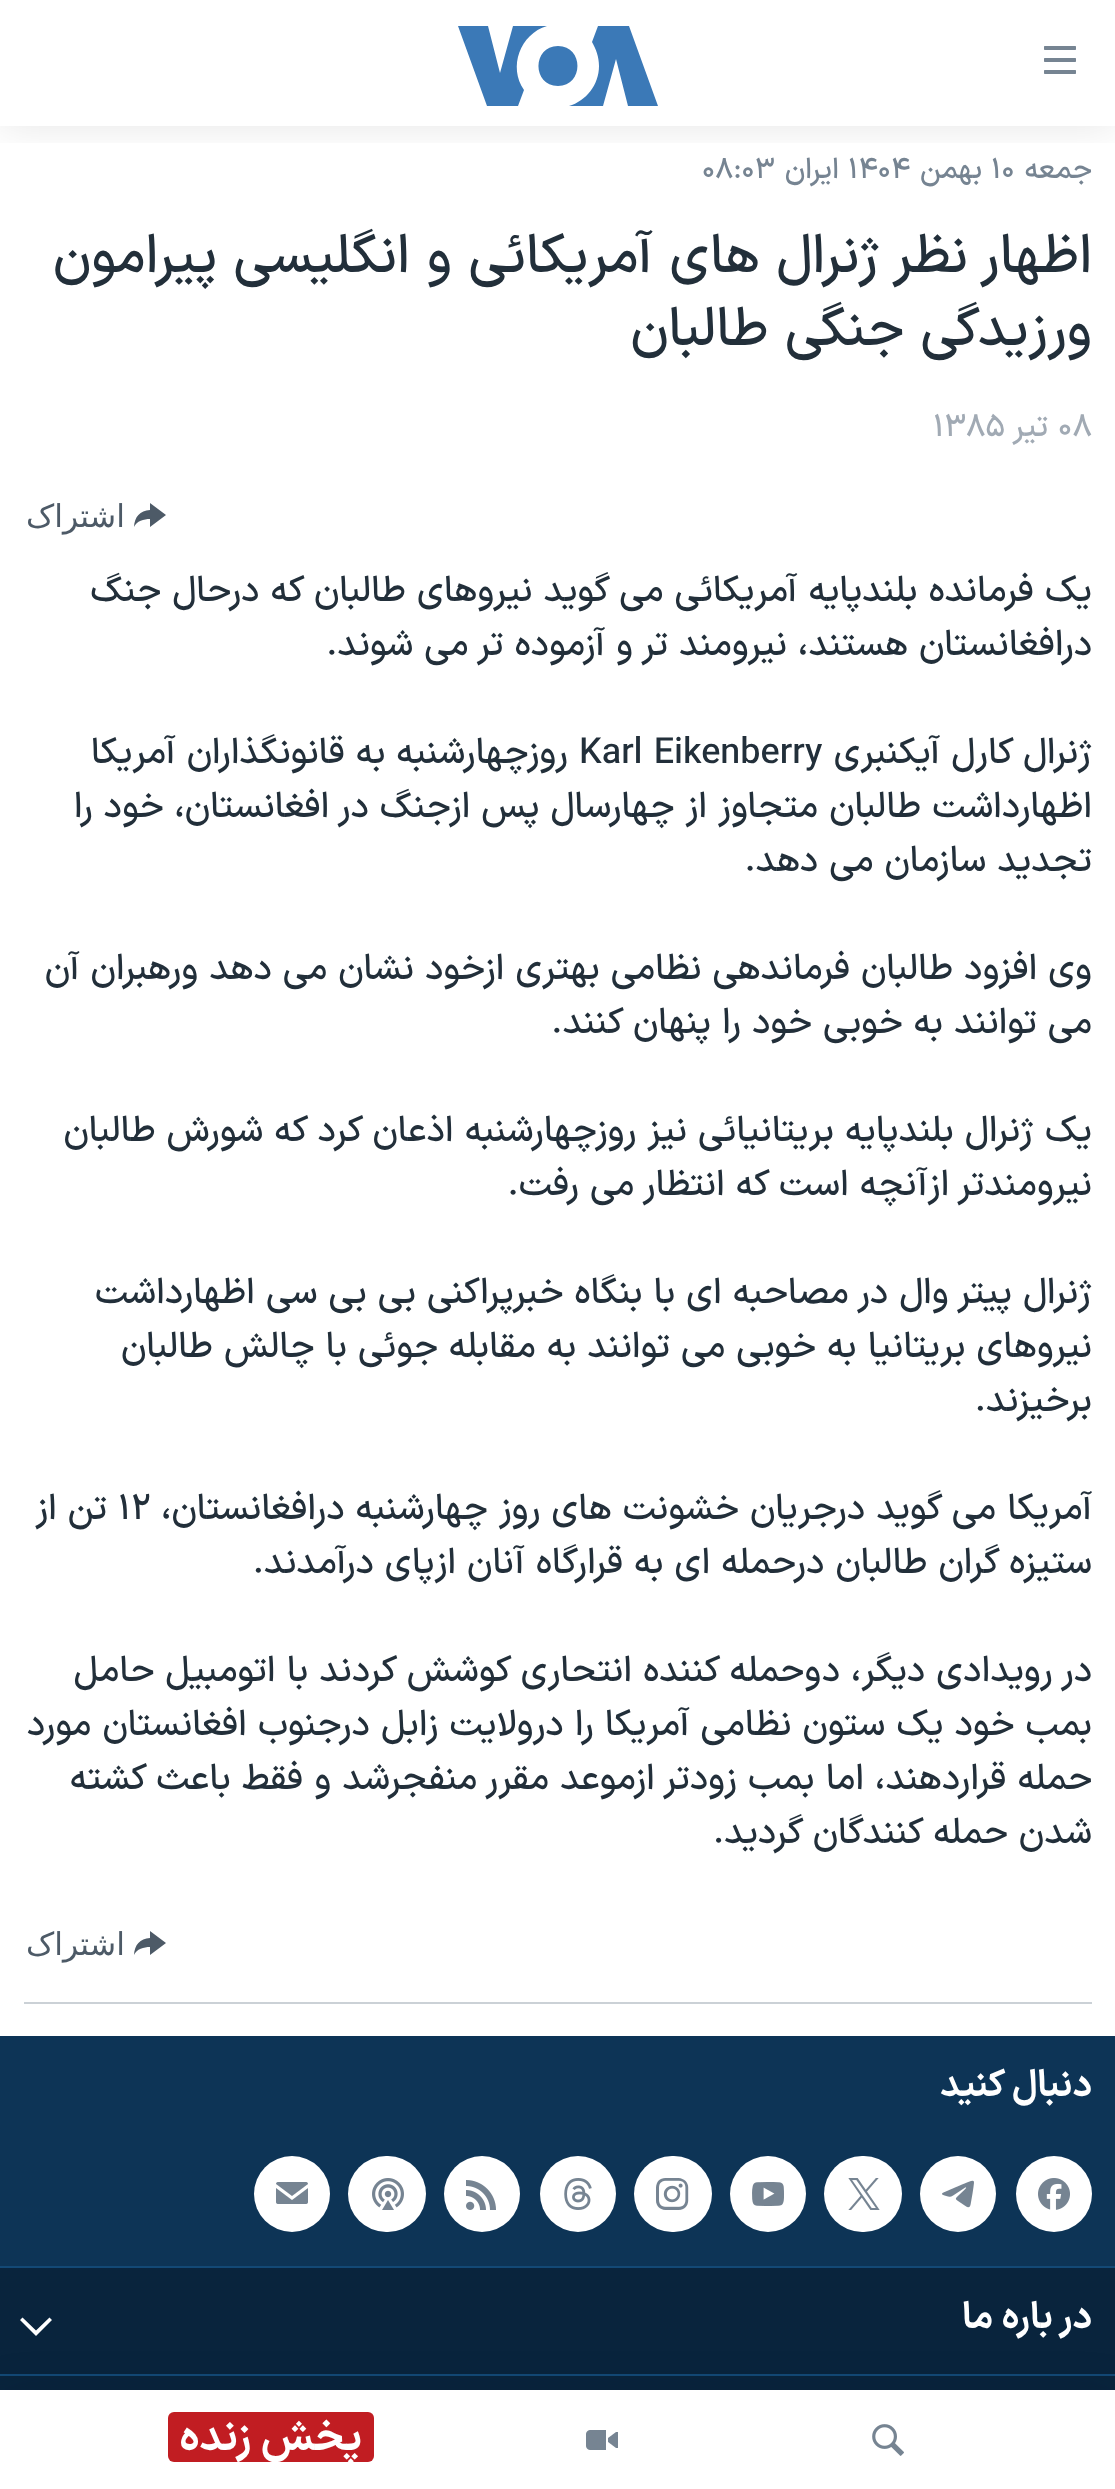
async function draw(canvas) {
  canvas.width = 1115;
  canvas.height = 2489;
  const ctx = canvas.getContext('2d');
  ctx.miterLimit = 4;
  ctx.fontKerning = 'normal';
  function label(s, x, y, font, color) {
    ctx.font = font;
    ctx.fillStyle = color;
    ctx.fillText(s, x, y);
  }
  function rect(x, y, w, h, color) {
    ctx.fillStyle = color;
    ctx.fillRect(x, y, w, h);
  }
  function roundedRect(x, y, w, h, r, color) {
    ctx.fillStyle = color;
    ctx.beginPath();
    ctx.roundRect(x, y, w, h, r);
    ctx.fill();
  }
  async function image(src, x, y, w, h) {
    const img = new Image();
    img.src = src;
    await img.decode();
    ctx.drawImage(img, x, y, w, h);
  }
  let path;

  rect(0, 0, 1115, 2489, '#fff');
  ctx.direction = 'rtl';
  label('جمعه', 1092, 178, '500 29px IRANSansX', '#768492');
  ctx.direction = 'ltr';
  label('۱۰', 991, 178, '500 29px IRANSansX', '#768492');
  ctx.direction = 'rtl';
  label('بهمن', 982, 178, '500 29px IRANSansX', '#768492');
  ctx.direction = 'ltr';
  label('۱۴۰۴', 848, 178, '500 29px IRANSansX', '#768492');
  ctx.direction = 'rtl';
  label('ایران', 839, 178, '500 29px IRANSansX', '#768492');
  ctx.direction = 'ltr';
  label('۰۸:۰۳', 702, 178, '500 29px IRANSansX', '#768492');
  ctx.direction = 'rtl';
  label('اظهار نظر ژنرال های آمريکائی و انگليسی پيرامون', 1092, 272, '500 54px IRANSansX', '#222f3a');
  label('ورزيدگی جنگی طالبان', 1092, 345, '500 54px IRANSansX', '#222f3a');
  ctx.direction = 'ltr';
  label('۰۸', 1058, 436, '500 31.5px IRANSansX', '#a1aab4');
  ctx.direction = 'rtl';
  label('تیر', 1048, 436, '500 31.5px IRANSansX', '#a1aab4');
  ctx.direction = 'ltr';
  label('۱۳۸۵', 933, 436, '500 31.5px IRANSansX', '#a1aab4');
  ctx.fillStyle = '#4d5a67';
  path = new Path2D('M134 527C134.5 517 140 510.5 150 510V503L166 515L150 527V519C144 519 136.5 521 134 527Z');
  ctx.fill(path);
  ctx.direction = 'rtl';
  label('اشتراک', 125, 527, '31.5px DejaVu Sans', '#4d5a67');
  label('يک فرمانده بلندپايه آمريکائی می گويد نيروهای طالبان که درحال جنگ', 1092, 601, '500 36px IRANSansX', '#222f3a');
  label('درافغانستان هستند، نيرومند تر و آزموده تر می شوند.', 1092, 655, '500 36px IRANSansX', '#222f3a');
  label('ژنرال کارل آيکنبری', 1092, 763, '500 36px IRANSansX', '#222f3a');
  ctx.direction = 'ltr';
  label('Karl Eikenberry', 579, 763, '500 36px IRANSansX', '#222f3a');
  ctx.direction = 'rtl';
  label('روزچهارشنبه به قانونگذاران آمريکا', 568, 763, '500 36px IRANSansX', '#222f3a');
  label('اظهارداشت طالبان متجاوز از چهارسال پس ازجنگ در افغانستان، خود را', 1092, 817, '500 36px IRANSansX', '#222f3a');
  label('تجديد سازمان می دهد.', 1092, 871, '500 36px IRANSansX', '#222f3a');
  label('وی افزود طالبان فرماندهی نظامی بهتری ازخود نشان می دهد ورهبران آن', 1092, 979, '500 36px IRANSansX', '#222f3a');
  label('می توانند به خوبی خود را پنهان کنند.', 1092, 1033, '500 36px IRANSansX', '#222f3a');
  label('يک ژنرال بلندپايه بريتانيائی نيز روزچهارشنبه اذعان کرد که شورش طالبان', 1092, 1141, '500 36px IRANSansX', '#222f3a');
  label('نيرومندتر ازآنچه است که انتظار می رفت.', 1092, 1195, '500 36px IRANSansX', '#222f3a');
  label('ژنرال پيتر وال در مصاحبه ای با بنگاه خبرپراکنی بی بی سی اظهارداشت', 1092, 1303, '500 36px IRANSansX', '#222f3a');
  label('نيروهای بريتانيا به خوبی می توانند به مقابله جوئی با چالش طالبان', 1092, 1357, '500 36px IRANSansX', '#222f3a');
  label('برخيزند.', 1092, 1411, '500 36px IRANSansX', '#222f3a');
  label('آمريکا می گويد درجريان خشونت های روز چهارشنبه درافغانستان،', 1092, 1519, '500 36px IRANSansX', '#222f3a');
  ctx.direction = 'ltr';
  label('۱۲', 118, 1519, '500 36px IRANSansX', '#222f3a');
  ctx.direction = 'rtl';
  label('تن از', 107, 1519, '500 36px IRANSansX', '#222f3a');
  label('ستيزه گران طالبان درحمله ای به قرارگاه آنان ازپای درآمدند.', 1092, 1573, '500 36px IRANSansX', '#222f3a');
  label('در رويدادی ديگر، دوحمله کننده انتحاری کوشش کردند با اتومبيل حامل', 1092, 1681, '500 36px IRANSansX', '#222f3a');
  label('بمب خود يک ستون نظامی آمريکا را درولايت زابل درجنوب افغانستان مورد', 1092, 1735, '500 36px IRANSansX', '#222f3a');
  label('حمله قراردهند، اما بمب زودتر ازموعد مقرر منفجرشد و فقط باعث کشته', 1092, 1789, '500 36px IRANSansX', '#222f3a');
  label('شدن حمله کنندگان گرديد.', 1092, 1843, '500 36px IRANSansX', '#222f3a');
  rect(24, 2002, 1068, 2, '#cbd1d6');
  ctx.fillStyle = '#4d5a67';
  path = new Path2D('M134 1955C134.5 1945 140 1938.5 150 1938V1931L166 1943L150 1955V1947C144 1947 136.5 1949 134 1955Z');
  ctx.fill(path);
  label('اشتراک', 125, 1955, '31.5px DejaVu Sans', '#4d5a67');
  rect(0, 2036, 1115, 230, '#0d3456');
  label('دنبال کنید', 1092, 2096, 'bold 37px IRANSansX', '#fff');
  ctx.beginPath();
  ctx.arc(1054, 2194, 38, 0, 2 * Math.PI);
  ctx.fill();
  await image('assets/img1.png', 1038, 2178, 32, 32);
  ctx.beginPath();
  ctx.arc(958, 2194, 38, 0, 2 * Math.PI);
  ctx.fill();
  await image('assets/img2.png', 942, 2180, 32, 28);
  roundedRect(824, 2156, 78, 76, 38, '#fff');
  await image('assets/img3.png', 848, 2178, 32, 32);
  ctx.beginPath();
  ctx.arc(768, 2194, 38, 0, 2 * Math.PI);
  ctx.fill();
  await image('assets/img4.png', 752, 2182, 32, 24);
  roundedRect(634, 2156, 78, 76, 38, '#fff');
  await image('assets/img5.png', 656, 2178, 33, 32);
  ctx.beginPath();
  ctx.arc(578, 2194, 38, 0, 2 * Math.PI);
  ctx.fill();
  await image('assets/img6.png', 564, 2178, 28, 32);
  ctx.beginPath();
  ctx.arc(482, 2194, 38, 0, 2 * Math.PI);
  ctx.fill();
  await image('assets/img7.png', 466, 2180, 30, 30);
  roundedRect(348, 2156, 78, 76, 38, '#fff');
  await image('assets/img8.png', 372, 2178, 32, 32);
  ctx.beginPath();
  ctx.arc(292, 2194, 38, 0, 2 * Math.PI);
  ctx.fill();
  await image('assets/img9.png', 276, 2182, 32, 22);
  rect(0, 2266, 1115, 2, '#134976');
  rect(0, 2268, 1115, 106, '#09243d');
  label('در باره ما', 1092, 2328, 'bold 37px IRANSansX', '#fff');
  path = new Path2D('M20 2320L36 2336L52 2320L49.5 2317.5L36 2330.5L22.5 2317.5Z');
  ctx.fill(path);
  rect(0, 2374, 1115, 2, '#134976');
  rect(0, 2376, 1115, 14, '#09243d');
  ctx.save();
  ctx.beginPath();
  ctx.rect(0, 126, 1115, 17);
  ctx.clip();
  ctx.fillStyle = '#0000001a';
  ctx.filter = 'blur(20px)';
  ctx.beginPath();
  ctx.rect(0, 0, 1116, 126);
  ctx.fill();
  ctx.filter = 'none';
  ctx.restore();
  await image('assets/img10.png', 1044, 46, 32, 28);
  ctx.fillStyle = '#3b79b7';
  path = new Path2D('M524 90L518 106H487L458 26H488L500 73L513 26H547C520 34 508 67 524 90ZM558 46C532 46 532 86 558 86C584 86 584 46 558 46ZM599 66C599 85 586 101 569 106H603L616 59L628 106H658L629 26H598L592 42C596 49 599 57 599 66Z');
  ctx.fill(path);
  ctx.fillStyle = '#0000001a';
  ctx.filter = 'blur(20px)';
  ctx.beginPath();
  ctx.rect(0, 2390, 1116, 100);
  ctx.fill();
  ctx.filter = 'none';
  rect(0, 2390, 1115, 99, '#fff');
  await image('assets/img11.png', 872, 2424, 32, 32);
  await image('assets/img12.png', 586, 2430, 32, 20);
  roundedRect(168, 2412, 206, 50, 6, '#c11d22');
  label('پخش زنده', 362, 2450, 'bold 42px IRANSansX', '#fff');
}

draw(document.querySelector('canvas'));
